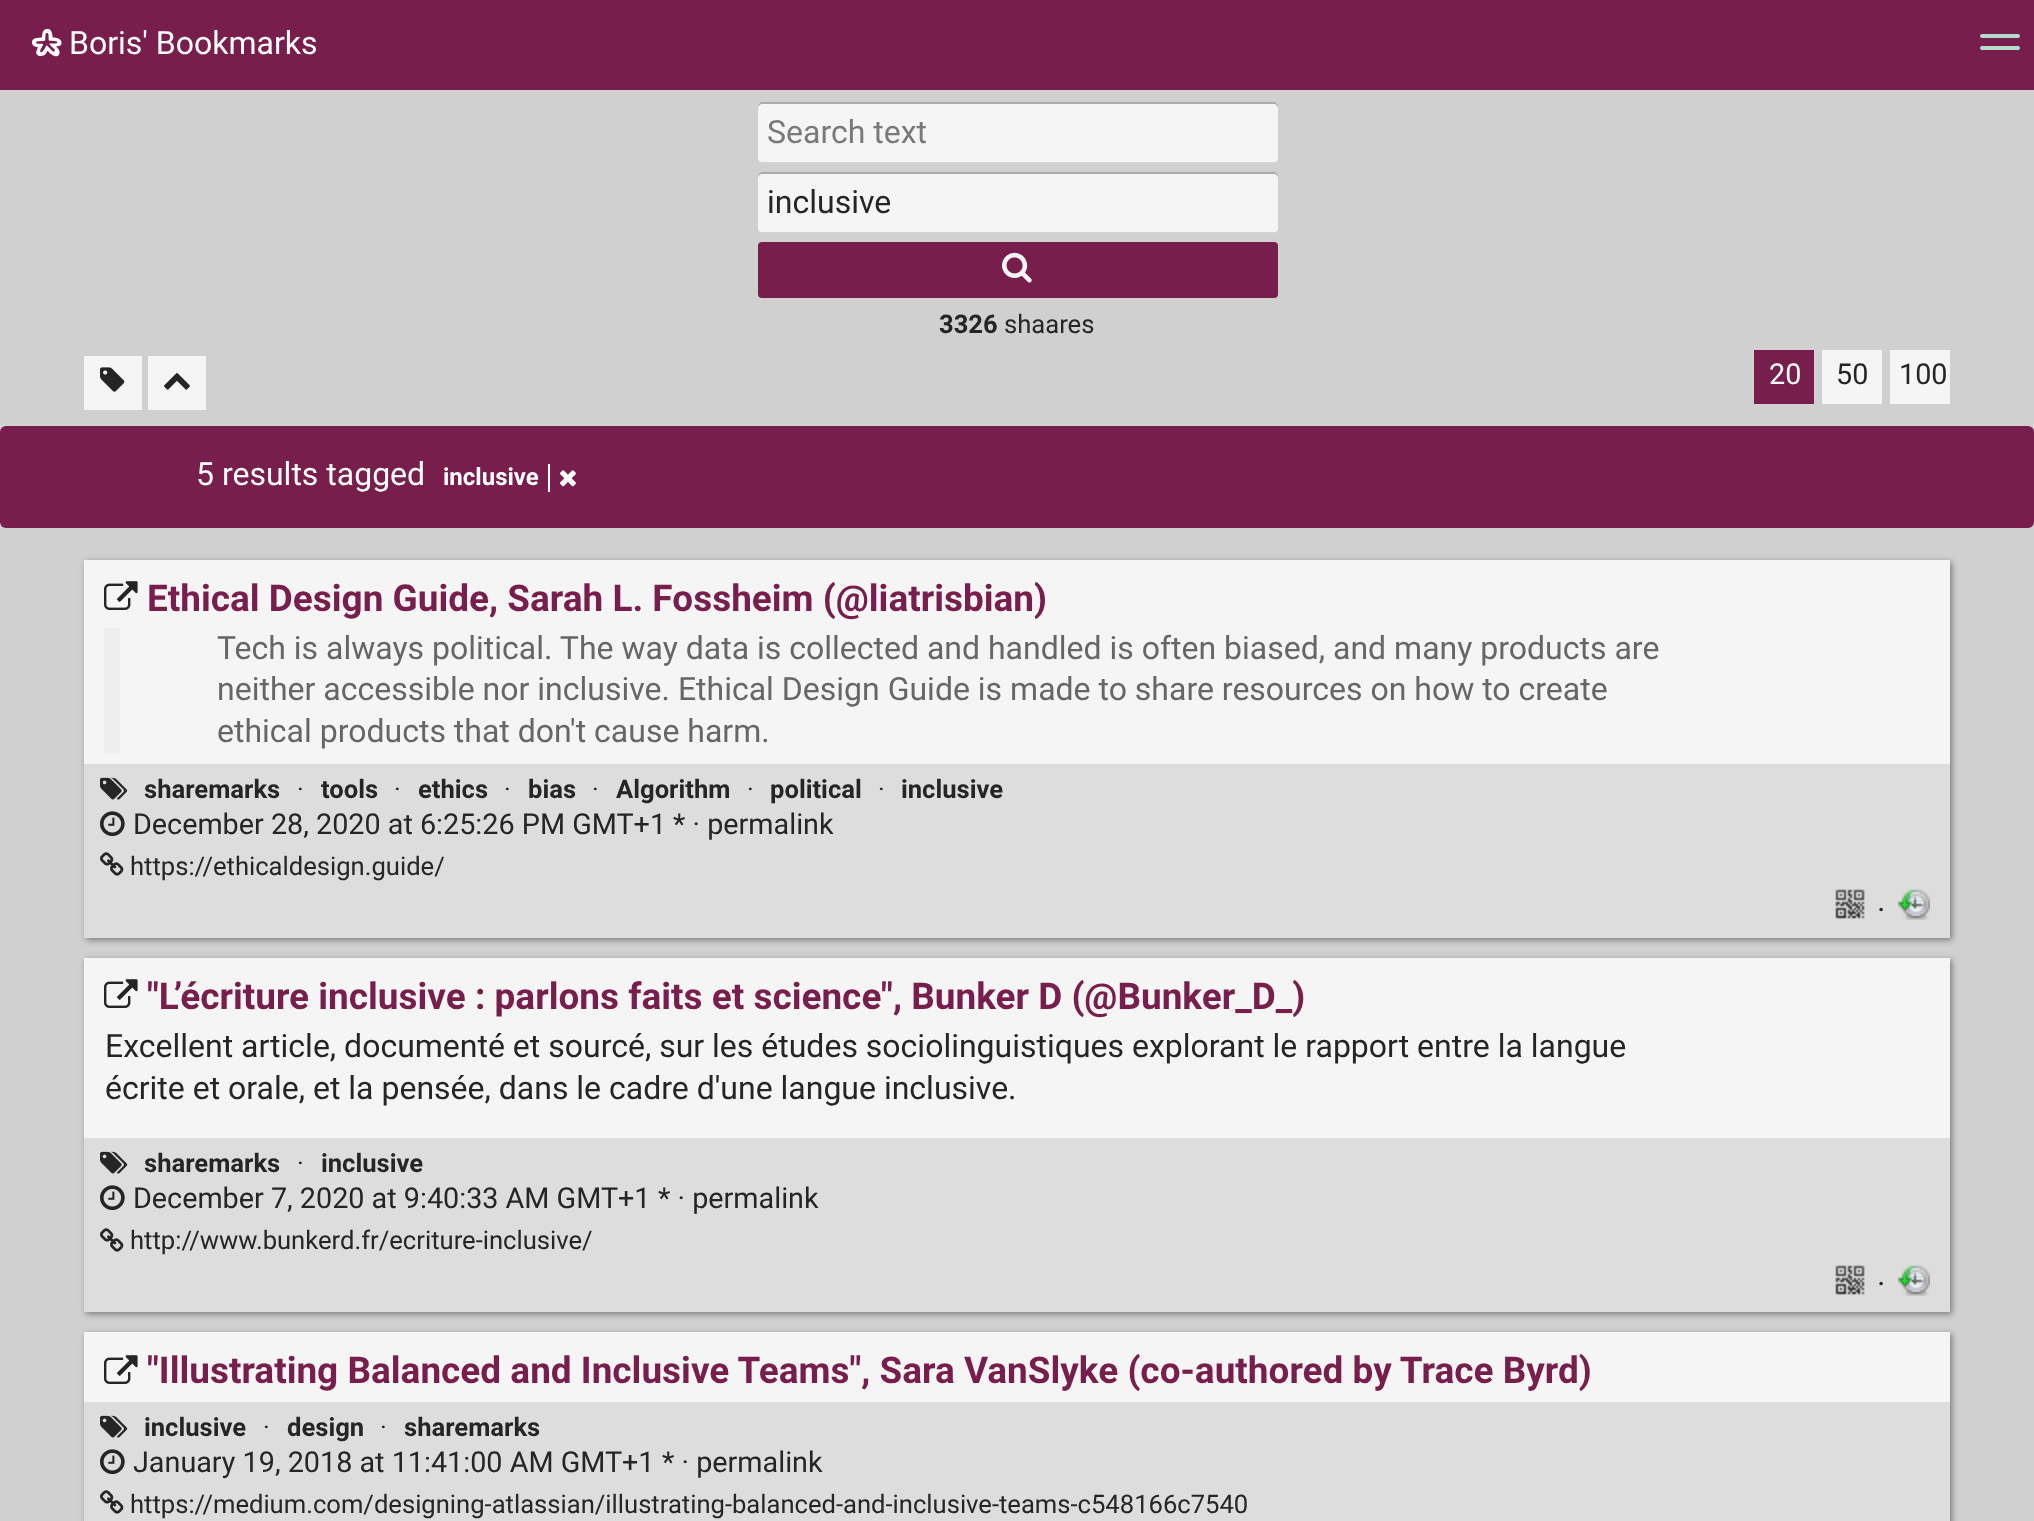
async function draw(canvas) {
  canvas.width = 2034;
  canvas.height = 1521;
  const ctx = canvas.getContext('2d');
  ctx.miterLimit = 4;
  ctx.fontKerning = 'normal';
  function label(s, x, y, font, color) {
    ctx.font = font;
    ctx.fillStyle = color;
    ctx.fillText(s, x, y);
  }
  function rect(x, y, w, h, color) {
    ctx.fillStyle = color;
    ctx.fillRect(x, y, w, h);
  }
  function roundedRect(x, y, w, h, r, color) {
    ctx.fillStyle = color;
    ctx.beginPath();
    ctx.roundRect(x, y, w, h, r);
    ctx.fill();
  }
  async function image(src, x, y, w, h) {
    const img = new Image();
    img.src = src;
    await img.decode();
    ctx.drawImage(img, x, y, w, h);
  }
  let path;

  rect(0, 0, 2034, 1521, '#d0d0d0');
  rect(0, 0, 2034, 90, '#781e4c');
  await image('assets/img1.png', 32, 28, 30, 29);
  label('Boris\' Bookmarks', 69, 54, '32px Roboto', '#fff');
  roundedRect(1980, 34, 40, 4, 2, '#b0ddce');
  roundedRect(1980, 46, 40, 4, 2, '#b0ddce');
  ctx.fillStyle = '#d4d4d4';
  path = new Path2D('M758 158V160C758 162 760 164 762 164H1274C1276 164 1278 162 1278 160V158C1278 160 1276 162 1274 162H762C760 162 758 160 758 158Z');
  ctx.fill(path);
  roundedRect(758, 102, 520, 60, 4, '#f5f5f5');
  ctx.fillStyle = '#0000004d';
  path = new Path2D('M762 104H1274C1276 104 1278 106 1278 108V106C1278 104 1276 102 1274 102H762C760 102 758 104 758 106V108C758 106 760 104 762 104Z');
  ctx.fill(path);
  label('Search text', 767, 143, '32px Roboto', '#797979');
  ctx.fillStyle = '#d4d4d4';
  path = new Path2D('M758 228V230C758 232 760 234 762 234H1274C1276 234 1278 232 1278 230V228C1278 230 1276 232 1274 232H762C760 232 758 230 758 228Z');
  ctx.fill(path);
  roundedRect(758, 172, 520, 60, 4, '#f5f5f5');
  ctx.fillStyle = '#0000004d';
  path = new Path2D('M762 174H1274C1276 174 1278 176 1278 178V176C1278 174 1276 172 1274 172H762C760 172 758 174 758 176V178C758 176 760 174 762 174Z');
  ctx.fill(path);
  label('inclusive', 767, 213, '32px Roboto', '#252525');
  roundedRect(758, 242, 520, 56, 4, '#781e4c');
  await image('assets/img2.png', 1002, 252, 30, 31);
  label('3326', 939, 333, 'bold 25.6px Roboto', '#252525');
  label('shaares', 1004, 333, '25.6px Roboto', '#252525');
  rect(84, 356, 58, 54, '#f5f5f5');
  await image('assets/img3.png', 100, 367, 25, 25);
  rect(148, 356, 58, 54, '#f5f5f5');
  await image('assets/img4.png', 164, 373, 26, 17);
  rect(1754, 350, 60, 54, '#781e4c');
  label('20', 1769, 384, '28.75px Roboto', '#fff');
  rect(1822, 350, 60, 54, '#f5f5f5');
  label('50', 1836, 384, '28.75px Roboto', '#252525');
  rect(1890, 350, 60, 54, '#f5f5f5');
  label('100', 1899, 384, '28.75px Roboto', '#252525');
  roundedRect(0, 426, 2034, 102, 6, '#781e4c');
  label('5 results tagged', 196, 485, '32px Roboto', '#fff');
  label('inclusive', 443, 485, 'bold 24px Roboto', '#fff');
  rect(548, 464, 2, 28, '#fff');
  await image('assets/img5.png', 560, 470, 16, 17);
  ctx.fillStyle = '#797979';
  ctx.filter = 'blur(3px)';
  ctx.beginPath();
  ctx.rect(86, 562, 1866, 378);
  ctx.fill();
  ctx.filter = 'none';
  rect(84, 560, 1866, 204, '#f5f5f5');
  await image('assets/img6.png', 104, 581, 34, 29);
  label('Ethical Design Guide, Sarah L. Fossheim (@liatrisbian)', 147, 611, 'bold 36.95px Roboto', '#781e4c');
  rect(104, 628, 16, 126, '#eee');
  label('Tech is always political. The way data is collected and handled is often biased, and many products are', 217, 659, '32px Roboto', '#666');
  label('neither accessible nor inclusive. Ethical Design Guide is made to share resources on how to create', 217, 700, '32px Roboto', '#666');
  label('ethical products that don\'t cause harm.', 217, 742, '32px Roboto', '#666');
  rect(84, 764, 1866, 174, '#ddd');
  await image('assets/img7.png', 100, 777, 28, 23);
  label('sharemarks', 144, 798, 'bold 25.6px Roboto', '#252525');
  label('·', 297, 798, '25.6px Roboto', '#252525');
  label('tools', 321, 798, 'bold 25.6px Roboto', '#252525');
  label('·', 394, 798, '25.6px Roboto', '#252525');
  label('ethics', 418, 798, 'bold 25.6px Roboto', '#252525');
  label('·', 504, 798, '25.6px Roboto', '#252525');
  label('bias', 528, 798, 'bold 25.6px Roboto', '#252525');
  label('·', 592, 798, '25.6px Roboto', '#252525');
  label('Algorithm', 616, 798, 'bold 25.6px Roboto', '#252525');
  label('·', 747, 798, '25.6px Roboto', '#252525');
  label('political', 770, 798, 'bold 25.6px Roboto', '#252525');
  label('·', 878, 798, '25.6px Roboto', '#252525');
  label('inclusive', 901, 798, 'bold 25.6px Roboto', '#252525');
  await image('assets/img8.png', 100, 811, 25, 26);
  label('December 28, 2020 at 6:25:26 PM GMT+1', 133, 834, '28.75px Roboto', '#252525');
  label('* · permalink', 673, 834, '28.75px Roboto', '#252525');
  await image('assets/img9.png', 100, 852, 24, 24);
  label('https://ethicaldesign.guide/', 130, 875, '25.6px Roboto', '#252525');
  await image('assets/img10.png', 1835, 889, 30, 30);
  label('·', 1877, 921, '32px Roboto', '#252525');
  await image('assets/img11.png', 1898, 889, 32, 31);
  ctx.fillStyle = '#797979';
  ctx.filter = 'blur(3px)';
  ctx.beginPath();
  ctx.rect(86, 960, 1866, 354);
  ctx.fill();
  ctx.filter = 'none';
  rect(84, 958, 1866, 180, '#f5f5f5');
  await image('assets/img6.png', 104, 979, 34, 29);
  label('"L’écriture inclusive : parlons faits et science", Bunker D (@Bunker_D_)', 147, 1009, 'bold 36.95px Roboto', '#781e4c');
  label('Excellent article, documenté et sourcé, sur les études sociolinguistiques explorant le rapport entre la langue', 105, 1057, '32px Roboto', '#252525');
  label('écrite et orale, et la pensée, dans le cadre d\'une langue inclusive.', 105, 1099, '32px Roboto', '#252525');
  rect(84, 1138, 1866, 174, '#ddd');
  await image('assets/img7.png', 100, 1151, 28, 23);
  label('sharemarks', 144, 1172, 'bold 25.6px Roboto', '#252525');
  label('·', 297, 1172, '25.6px Roboto', '#252525');
  label('inclusive', 321, 1172, 'bold 25.6px Roboto', '#252525');
  await image('assets/img8.png', 100, 1185, 25, 26);
  label('December 7, 2020 at 9:40:33 AM GMT+1', 133, 1208, '28.75px Roboto', '#252525');
  label('* · permalink', 658, 1208, '28.75px Roboto', '#252525');
  await image('assets/img9.png', 100, 1228, 24, 24);
  label('http://www.bunkerd.fr/ecriture-inclusive/', 130, 1249, '25.6px Roboto', '#252525');
  await image('assets/img10.png', 1835, 1265, 30, 30);
  label('·', 1877, 1295, '32px Roboto', '#252525');
  await image('assets/img11.png', 1898, 1265, 32, 31);
  ctx.fillStyle = '#797979';
  ctx.filter = 'blur(3px)';
  ctx.beginPath();
  ctx.rect(86, 1334, 1866, 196);
  ctx.fill();
  ctx.filter = 'none';
  rect(84, 1332, 1866, 70, '#f5f5f5');
  await image('assets/img6.png', 104, 1355, 34, 29);
  label('"Illustrating Balanced and Inclusive Teams", Sara VanSlyke (co-authored by Trace Byrd)', 147, 1383, 'bold 36.95px Roboto', '#781e4c');
  rect(84, 1402, 1866, 119, '#ddd');
  await image('assets/img7.png', 100, 1415, 28, 23);
  label('inclusive', 144, 1436, 'bold 25.6px Roboto', '#252525');
  label('·', 263, 1436, '25.6px Roboto', '#252525');
  label('design', 287, 1436, 'bold 25.6px Roboto', '#252525');
  label('·', 380, 1436, '25.6px Roboto', '#252525');
  label('sharemarks', 404, 1436, 'bold 25.6px Roboto', '#252525');
  await image('assets/img8.png', 100, 1449, 25, 26);
  label('January 19, 2018 at 11:41:00 AM GMT+1', 133, 1472, '28.75px Roboto', '#252525');
  label('* · permalink', 662, 1472, '28.75px Roboto', '#252525');
  await image('assets/img9.png', 100, 1490, 24, 24);
  label('https://medium.com/designing-atlassian/illustrating-balanced-and-inclusive-teams-c548166c7540', 130, 1513, '25.6px Roboto', '#252525');
}

draw(document.querySelector('canvas'));
